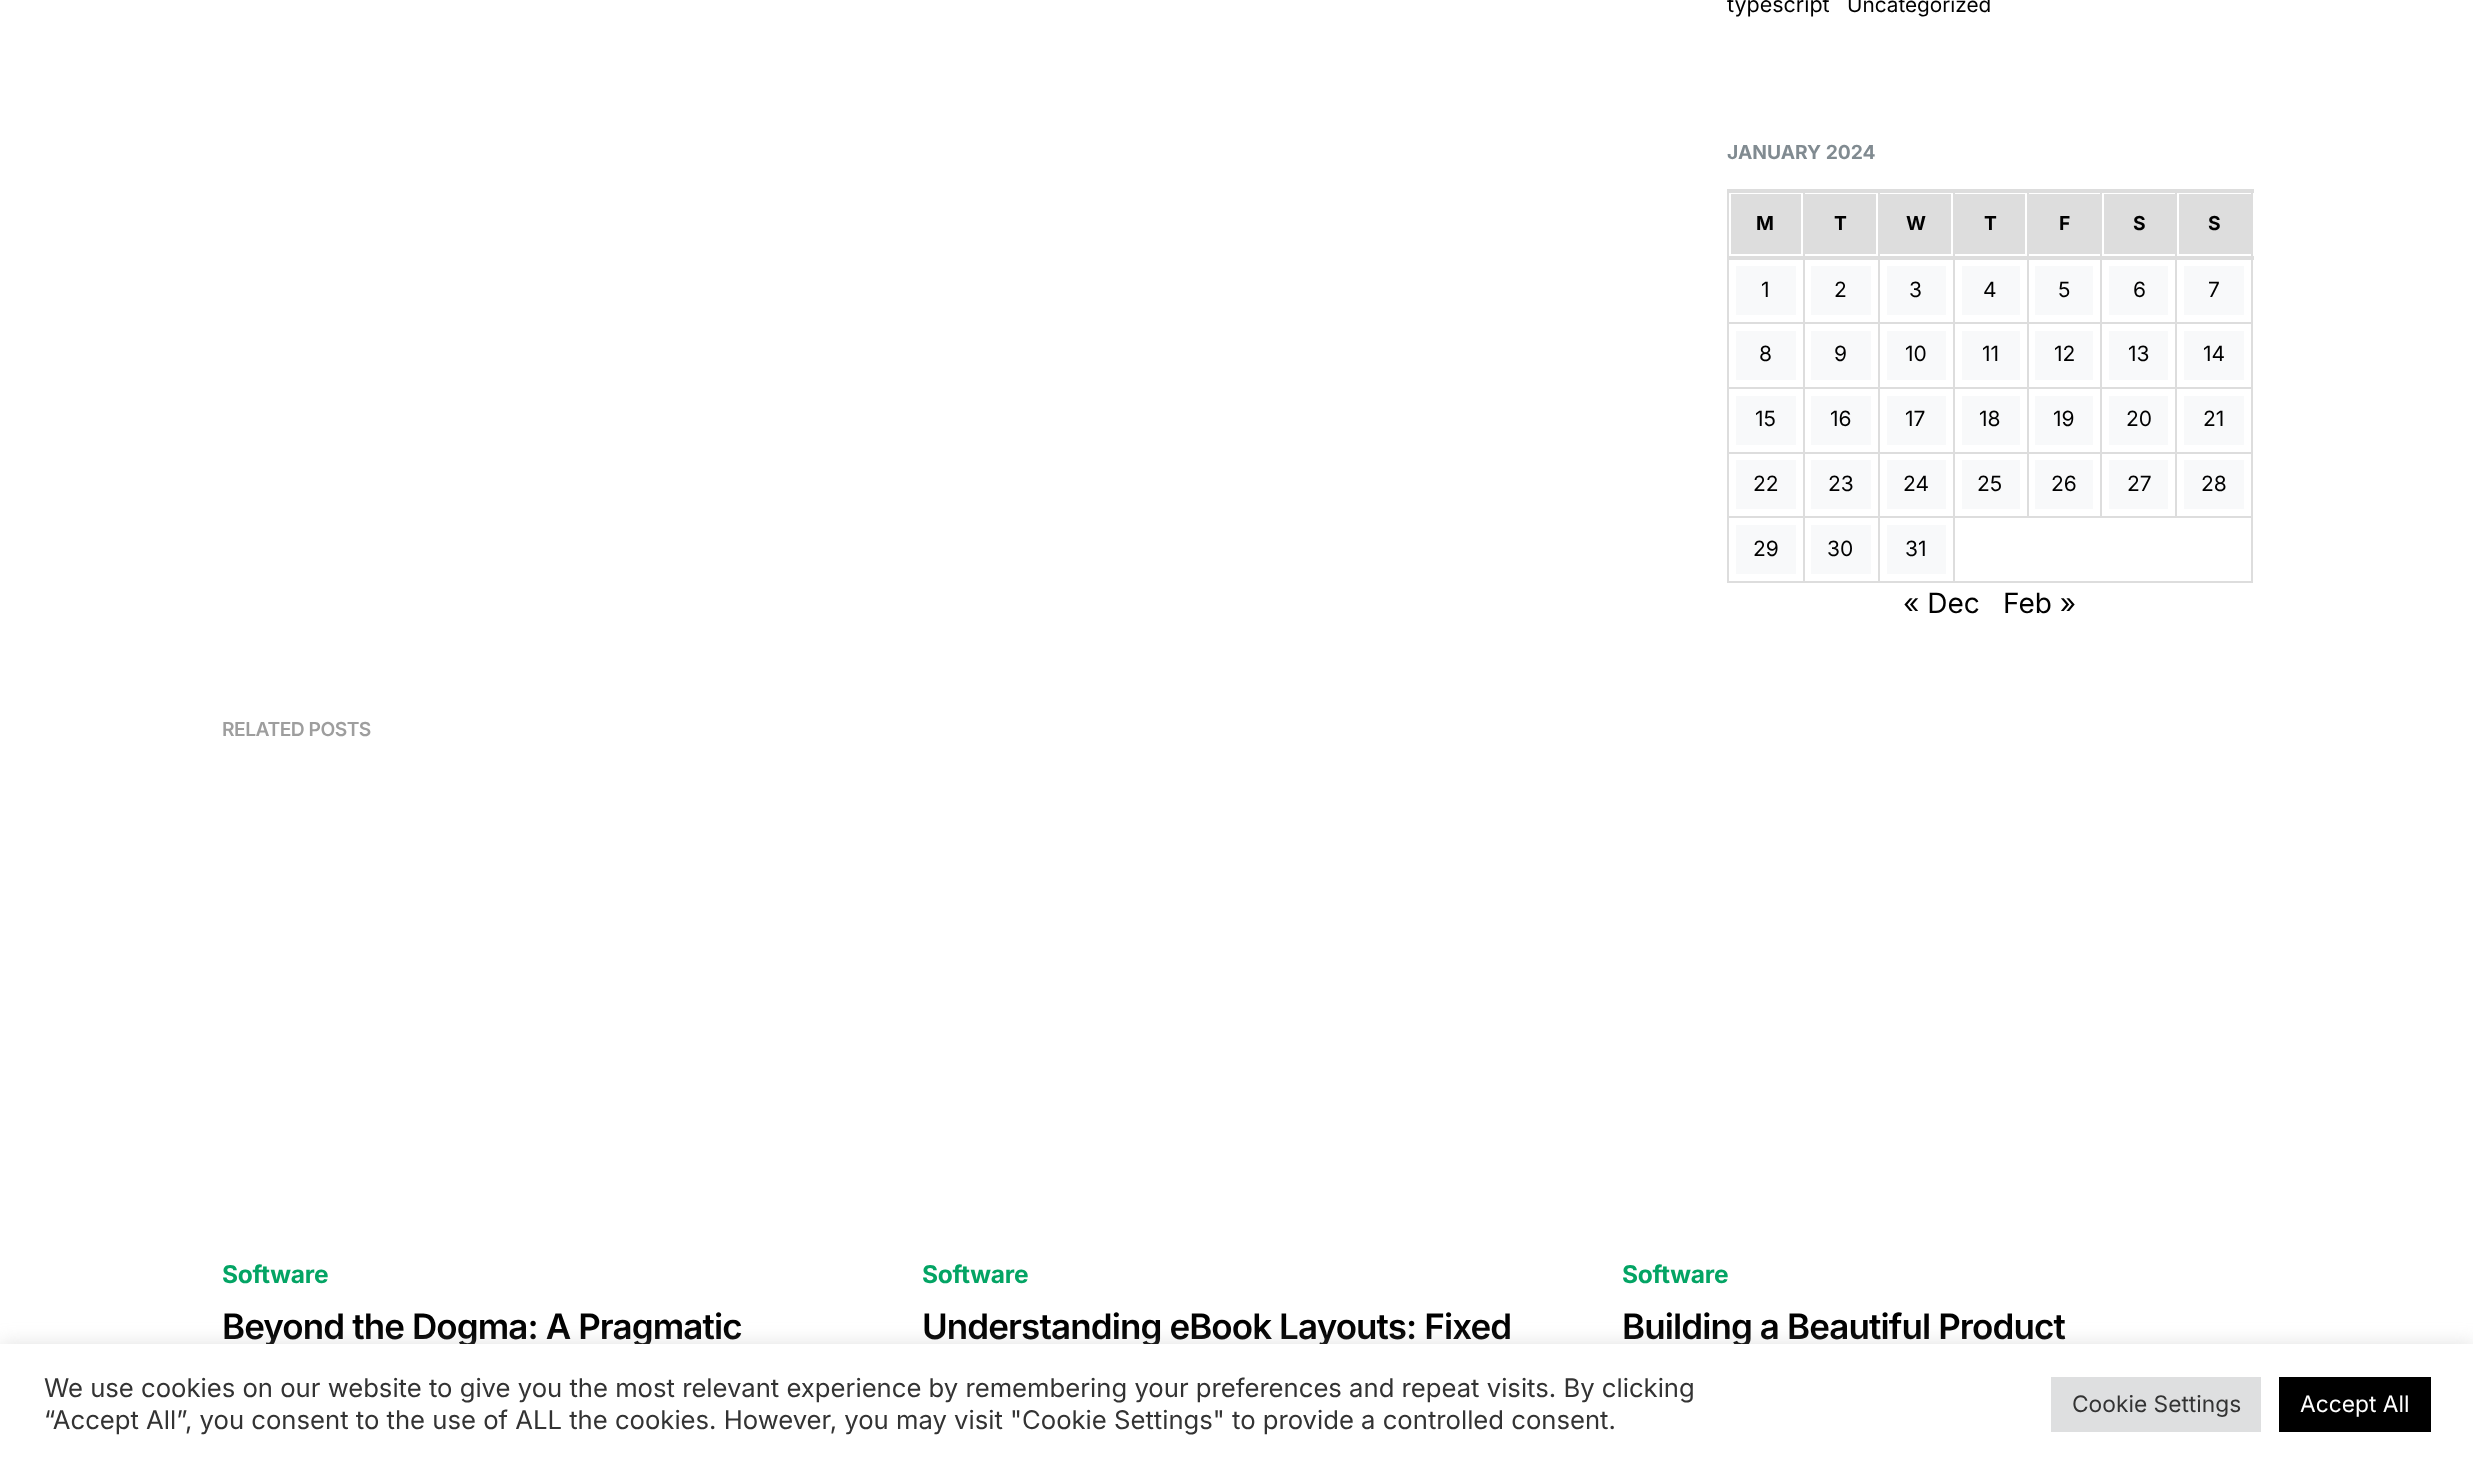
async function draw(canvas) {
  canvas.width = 2473;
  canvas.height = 1464;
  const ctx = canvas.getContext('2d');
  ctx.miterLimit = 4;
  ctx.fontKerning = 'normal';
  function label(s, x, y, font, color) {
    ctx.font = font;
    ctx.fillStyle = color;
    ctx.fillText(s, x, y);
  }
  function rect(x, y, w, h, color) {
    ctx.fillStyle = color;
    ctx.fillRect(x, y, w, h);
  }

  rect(0, 0, 2473, 1464, '#fff');
  label('typescript', 1727, 12, '21.5px Inter', '#000');
  label('Uncategorized', 1847, 12, '20.75px Inter', '#000');
  label('JANUARY 2024', 1727, 159, 'bold 19.25px Inter', '#818b91');
  rect(1731, 194, 70, 60, '#ddd');
  label('M', 1756, 230, 'bold 19.25px Inter', '#000');
  rect(1805, 194, 71, 60, '#ddd');
  label('T', 1834, 230, 'bold 19.25px Inter', '#000');
  rect(1880, 194, 71, 60, '#ddd');
  label('W', 1906, 230, 'bold 19.25px Inter', '#000');
  rect(1955, 194, 70, 60, '#ddd');
  label('T', 1984, 230, 'bold 19.25px Inter', '#000');
  rect(2029, 194, 71, 60, '#ddd');
  label('F', 2059, 230, 'bold 19.25px Inter', '#000');
  rect(2104, 194, 71, 60, '#ddd');
  label('S', 2133, 230, 'bold 19.25px Inter', '#000');
  rect(2179, 194, 72, 60, '#ddd');
  rect(2175, 322, 77, 2, '#ddd');
  rect(2175, 387, 77, 2, '#ddd');
  rect(2175, 452, 77, 2, '#ddd');
  rect(1953, 516, 299, 2, '#ddd');
  rect(2175, 452, 2, 66, '#ddd');
  rect(2100, 452, 77, 2, '#ddd');
  rect(2175, 387, 2, 66, '#ddd');
  rect(2100, 387, 77, 2, '#ddd');
  rect(2175, 322, 2, 67, '#ddd');
  rect(2100, 322, 77, 2, '#ddd');
  rect(2100, 452, 2, 66, '#ddd');
  rect(2027, 452, 75, 2, '#ddd');
  rect(2100, 387, 2, 66, '#ddd');
  rect(2027, 387, 75, 2, '#ddd');
  rect(2100, 322, 2, 67, '#ddd');
  rect(2027, 322, 75, 2, '#ddd');
  rect(2027, 452, 2, 66, '#ddd');
  rect(1953, 452, 75, 2, '#ddd');
  rect(2027, 387, 2, 66, '#ddd');
  rect(1953, 387, 75, 2, '#ddd');
  rect(2027, 322, 2, 67, '#ddd');
  rect(1953, 322, 75, 2, '#ddd');
  rect(2251, 516, 2, 67, '#ddd');
  rect(1953, 581, 299, 2, '#ddd');
  rect(1953, 516, 2, 67, '#ddd');
  rect(1878, 516, 77, 2, '#ddd');
  rect(1953, 452, 2, 66, '#ddd');
  rect(1878, 452, 77, 2, '#ddd');
  rect(1953, 387, 2, 66, '#ddd');
  rect(1878, 387, 77, 2, '#ddd');
  rect(1953, 322, 2, 67, '#ddd');
  rect(1878, 322, 77, 2, '#ddd');
  rect(1878, 581, 77, 2, '#ddd');
  rect(1878, 516, 2, 67, '#ddd');
  rect(1803, 516, 77, 2, '#ddd');
  rect(1878, 452, 2, 66, '#ddd');
  rect(1803, 452, 77, 2, '#ddd');
  rect(1878, 387, 2, 66, '#ddd');
  rect(1803, 387, 77, 2, '#ddd');
  rect(1878, 322, 2, 67, '#ddd');
  rect(1803, 322, 77, 2, '#ddd');
  rect(1803, 581, 77, 2, '#ddd');
  rect(1803, 516, 2, 67, '#ddd');
  rect(1727, 516, 77, 2, '#ddd');
  rect(1803, 452, 2, 66, '#ddd');
  rect(1727, 452, 77, 2, '#ddd');
  rect(1803, 387, 2, 66, '#ddd');
  rect(1727, 387, 77, 2, '#ddd');
  rect(1803, 322, 2, 67, '#ddd');
  rect(1727, 322, 77, 2, '#ddd');
  rect(1803, 189, 2, 135, '#ddd');
  rect(1878, 189, 2, 135, '#ddd');
  rect(1953, 189, 2, 135, '#ddd');
  rect(2027, 189, 2, 135, '#ddd');
  rect(2100, 189, 2, 135, '#ddd');
  rect(2175, 189, 2, 135, '#ddd');
  rect(1727, 581, 77, 2, '#ddd');
  rect(1727, 516, 2, 67, '#ddd');
  rect(1727, 452, 2, 66, '#ddd');
  rect(1727, 387, 2, 66, '#ddd');
  rect(1727, 189, 2, 200, '#ddd');
  rect(2251, 452, 2, 66, '#ddd');
  rect(2251, 387, 2, 66, '#ddd');
  rect(2251, 189, 2, 200, '#ddd');
  rect(1727, 189, 527, 4, '#ddd');
  rect(1727, 256, 527, 4, '#ddd');
  label('S', 2208, 230, 'bold 19.25px Inter', '#000');
  rect(1736, 266, 60, 49, '#f8f9fa');
  label('1', 1761, 297, '21px Inter', '#000');
  rect(1811, 266, 60, 49, '#f8f9fa');
  label('2', 1834, 297, '21px Inter', '#000');
  rect(1887, 266, 59, 49, '#f8f9fa');
  label('3', 1909, 297, '21px Inter', '#000');
  rect(1962, 266, 58, 49, '#f8f9fa');
  label('4', 1983, 297, '21px Inter', '#000');
  rect(2035, 266, 58, 49, '#f8f9fa');
  label('5', 2058, 297, '21px Inter', '#000');
  rect(2109, 266, 59, 49, '#f8f9fa');
  label('6', 2133, 297, '21px Inter', '#000');
  rect(2184, 266, 60, 49, '#f8f9fa');
  label('7', 2208, 297, '21px Inter', '#000');
  rect(1736, 331, 60, 49, '#f8f9fa');
  label('8', 1759, 361, '21px Inter', '#000');
  rect(1811, 331, 60, 49, '#f8f9fa');
  label('9', 1834, 361, '21px Inter', '#000');
  rect(1887, 331, 59, 49, '#f8f9fa');
  label('10', 1905, 361, '21px Inter', '#000');
  rect(1962, 331, 58, 49, '#f8f9fa');
  label('11', 1982, 361, '21px Inter', '#000');
  rect(2035, 331, 58, 49, '#f8f9fa');
  label('12', 2054, 361, '21px Inter', '#000');
  rect(2109, 331, 59, 49, '#f8f9fa');
  label('13', 2128, 361, '21px Inter', '#000');
  rect(2184, 331, 60, 49, '#f8f9fa');
  label('14', 2203, 361, '21px Inter', '#000');
  rect(1736, 396, 60, 49, '#f8f9fa');
  label('15', 1755, 426, '21px Inter', '#000');
  rect(1811, 396, 60, 49, '#f8f9fa');
  label('16', 1830, 426, '21px Inter', '#000');
  rect(1887, 396, 59, 49, '#f8f9fa');
  label('17', 1905, 426, '21px Inter', '#000');
  rect(1962, 396, 58, 49, '#f8f9fa');
  label('18', 1979, 426, '21px Inter', '#000');
  rect(2035, 396, 58, 49, '#f8f9fa');
  label('19', 2053, 426, '21px Inter', '#000');
  rect(2109, 396, 59, 49, '#f8f9fa');
  label('20', 2126, 426, '21px Inter', '#000');
  rect(2184, 396, 60, 49, '#f8f9fa');
  label('21', 2203, 426, '21px Inter', '#000');
  rect(1736, 460, 60, 49, '#f8f9fa');
  label('22', 1753, 491, '21px Inter', '#000');
  rect(1811, 460, 60, 49, '#f8f9fa');
  label('23', 1828, 491, '21px Inter', '#000');
  rect(1887, 460, 59, 49, '#f8f9fa');
  label('24', 1903, 491, '21px Inter', '#000');
  rect(1962, 460, 58, 49, '#f8f9fa');
  label('25', 1977, 491, '21px Inter', '#000');
  rect(2035, 460, 58, 49, '#f8f9fa');
  label('26', 2051, 491, '21px Inter', '#000');
  rect(2109, 460, 59, 49, '#f8f9fa');
  label('27', 2127, 491, '21px Inter', '#000');
  rect(2184, 460, 60, 49, '#f8f9fa');
  label('28', 2201, 491, '21px Inter', '#000');
  rect(1736, 525, 60, 49, '#f8f9fa');
  label('29', 1753, 556, '21px Inter', '#000');
  rect(1811, 525, 60, 49, '#f8f9fa');
  label('30', 1827, 556, '21px Inter', '#000');
  rect(1887, 525, 59, 49, '#f8f9fa');
  label('31', 1905, 556, '21px Inter', '#000');
  label('« Dec', 1903, 613, '28px Inter', '#000');
  label('Feb »', 2003, 613, '28px Inter', '#000');
  ctx.letterSpacing = '-0.5px';
  label('RELATED POSTS', 222, 736, '600 19.25px Inter', '#9e9e9e');
  ctx.letterSpacing = '-0.25px';
  label('Software', 222, 1283, 'bold 24.5px Inter', '#03a464');
  ctx.letterSpacing = '-0.9px';
  label('Beyond the Dogma: A Pragmatic', 222, 1339, '600 35px Inter', '#000');
  ctx.letterSpacing = '-0.25px';
  label('Software', 922, 1283, 'bold 24.5px Inter', '#03a464');
  ctx.letterSpacing = '-0.9px';
  label('Understanding eBook Layouts: Fixed', 922, 1339, '600 35px Inter', '#000');
  ctx.letterSpacing = '-0.25px';
  label('Software', 1622, 1283, 'bold 24.5px Inter', '#03a464');
  ctx.letterSpacing = '-0.9px';
  label('Building a Beautiful Product', 1622, 1339, '600 35px Inter', '#000');
  ctx.fillStyle = '#acabab4d';
  ctx.filter = 'blur(9px)';
  ctx.beginPath();
  ctx.rect(0, 1342, 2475, 121);
  ctx.fill();
  ctx.filter = 'none';
  rect(0, 1344, 2473, 120, '#fff');
  ctx.letterSpacing = '0px';
  label('We use cookies on our website to give you the most relevant experience by remembering your preferences and repeat visits. By clicking', 44, 1397, '25.67px Inter', '#333');
  label('“Accept All”, you consent to the use of ALL the cookies. However, you may visit "Cookie Settings" to provide a controlled consent.', 44, 1429, '25.67px Inter', '#333');
  rect(2051, 1377, 210, 55, '#dedfe0');
  label('Cookie Settings', 2072, 1412, '22.75px Inter', '#333');
  rect(2279, 1377, 152, 55, '#000');
  label('Accept All', 2300, 1412, '22.75px Inter', '#fff');
}

draw(document.querySelector('canvas'));
